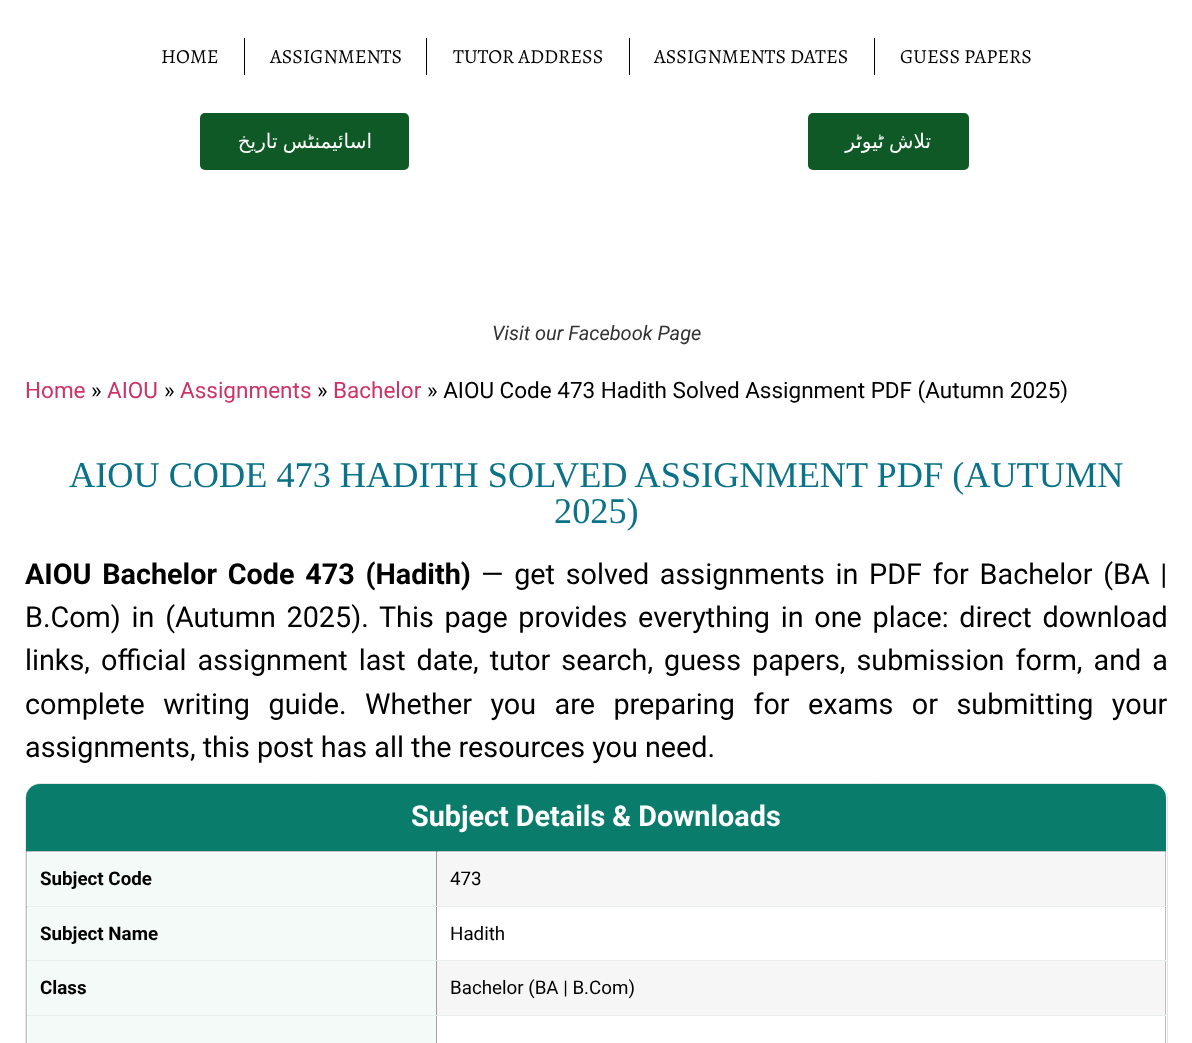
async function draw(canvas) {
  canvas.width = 1192;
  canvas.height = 1043;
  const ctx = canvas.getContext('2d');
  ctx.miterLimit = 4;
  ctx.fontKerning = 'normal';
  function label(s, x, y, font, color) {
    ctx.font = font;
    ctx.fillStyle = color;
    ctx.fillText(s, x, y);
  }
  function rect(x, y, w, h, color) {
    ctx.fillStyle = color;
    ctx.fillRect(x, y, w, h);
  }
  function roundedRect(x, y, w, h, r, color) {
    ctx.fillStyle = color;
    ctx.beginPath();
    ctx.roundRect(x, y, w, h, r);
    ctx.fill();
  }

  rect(0, 0, 1192, 1043, '#fff');
  rect(26, 851, 1, 192, '#c0c0c0');
  rect(26, 851, 412, 1, '#c0c0c0');
  rect(26, 851, 1, 1, '#a0a0a0');
  rect(436, 851, 1, 2, '#a0a0a0');
  rect(1165, 851, 1, 2, '#c0c0c0');
  rect(26, 906, 1, 2, '#a0a0a0');
  rect(436, 906, 1, 55, '#a0a0a0');
  rect(436, 906, 1, 2, '#888');
  rect(1165, 906, 1, 55, '#c0c0c0');
  rect(1165, 906, 1, 2, '#a0a0a0');
  rect(436, 1015, 1, 28, '#a0a0a0');
  rect(1165, 1015, 1, 28, '#c0c0c0');
  label('HOME', 161, 63, '20px Alegreya', '#000');
  rect(244, 38, 1, 37, '#000');
  label('ASSIGNMENTS', 270, 63, '20px Alegreya', '#000');
  rect(426, 38, 1, 37, '#000');
  label('TUTOR ADDRESS', 453, 63, '20px Alegreya', '#000');
  rect(629, 38, 1, 37, '#000');
  label('ASSIGNMENTS DATES', 654, 63, '20px Alegreya', '#000');
  rect(874, 38, 1, 37, '#000');
  label('GUESS PAPERS', 900, 63, '20px Alegreya', '#000');
  roundedRect(200, 113, 209, 57, 5, '#0e5925');
  ctx.wordSpacing = '-1px';
  ctx.direction = 'rtl';
  label('اسائیمنٹس تاریخ', 372, 148, '20px DejaVu Sans', '#fff');
  roundedRect(808, 113, 161, 57, 5, '#0e5925');
  label('تلاش ٹیوٹر', 931, 148, '20px DejaVu Sans', '#fff');
  ctx.wordSpacing = '0px';
  ctx.direction = 'ltr';
  label('Visit our Facebook Page', 492, 340, 'italic 20px Roboto', '#333');
  label('Home', 25, 398, '22.5px Roboto', '#c36');
  label('»', 91, 398, '22.5px Roboto', '#000');
  label('AIOU', 107, 398, '22.5px Roboto', '#c36');
  label('»', 164, 398, '22.5px Roboto', '#000');
  label('Assignments', 180, 398, '22.5px Roboto', '#c36');
  label('»', 317, 398, '22.5px Roboto', '#000');
  label('Bachelor', 333, 398, '22.5px Roboto', '#c36');
  label('» AIOU Code 473 Hadith Solved Assignment PDF (Autumn 2025)', 427, 398, '22.5px Roboto', '#000');
  label('AIOU CODE 473 HADITH SOLVED ASSIGNMENT PDF (AUTUMN', 69, 487, '36.25px Liberation Serif', '#0a7289');
  label('2025)', 554, 523, '36.25px Liberation Serif', '#0a7289');
  ctx.wordSpacing = '3.6px';
  label('AIOU Bachelor Code 473 (Hadith)', 25, 584, 'bold 28.75px Roboto', '#000');
  label('— get solved assignments in PDF for Bachelor (BA |', 481, 584, '28.75px Roboto', '#000');
  label('B.Com) in (Autumn 2025). This page provides everything in one place: direct download', 25, 627, '28.75px Roboto', '#000');
  ctx.wordSpacing = '3.9px';
  label('links, official assignment last date, tutor search, guess papers, submission form, and a', 25, 670, '28.75px Roboto', '#000');
  ctx.wordSpacing = '11.4px';
  label('complete writing guide. Whether you are preparing for exams or submitting your', 25, 714, '28.75px Roboto', '#000');
  ctx.wordSpacing = '0px';
  label('assignments, this post has all the resources you need.', 25, 757, '28.75px Roboto', '#000');
  ctx.beginPath();
  ctx.roundRect(25.5, 783.5, 1142, 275, 14.5);
  ctx.strokeStyle = '#e6e6e6';
  ctx.stroke();
  ctx.fillStyle = '#0a7c6c';
  ctx.beginPath();
  ctx.roundRect(26, 784, 1140, 67, [14, 14, 0, 0]);
  ctx.fill();
  label('Subject Details & Downloads', 411, 826, 'bold 28.75px Roboto', '#fff');
  rect(28, 853, 408, 53, '#f4faf8');
  rect(26, 906, 1140, 1, '#e9efec');
  rect(26, 906, 1, 1, '#b5b8b6');
  label('Subject Code', 40, 885, 'bold 18.75px Roboto', '#000');
  rect(437, 853, 728, 53, '#f6f6f6');
  rect(436, 853, 1, 53, '#9e9e9e');
  rect(1165, 853, 1, 53, '#bbb');
  rect(436, 851, 730, 1, '#c0c0c0');
  rect(436, 851, 2, 1, '#a0a0a0');
  rect(436, 851, 1, 1, '#888');
  rect(1165, 851, 1, 1, '#a0a0a0');
  label('473', 450, 885, '18.75px Roboto', '#000');
  rect(28, 907, 408, 53, '#f4faf8');
  rect(26, 960, 1140, 1, '#e9efec');
  rect(26, 960, 1, 1, '#b5b8b6');
  label('Subject Name', 40, 940, 'bold 18.75px Roboto', '#000');
  label('Hadith', 450, 940, '18.75px Roboto', '#000');
  rect(28, 961, 408, 54, '#f4faf8');
  rect(26, 1015, 1140, 1, '#e9efec');
  rect(26, 1015, 1, 1, '#b5b8b6');
  label('Class', 40, 994, 'bold 18.75px Roboto', '#000');
  rect(437, 961, 728, 54, '#f6f6f6');
  rect(436, 961, 1, 54, '#9e9e9e');
  rect(1165, 961, 1, 54, '#bbb');
  label('Bachelor (BA | B.Com)', 450, 994, '18.75px Roboto', '#000');
  rect(28, 1016, 408, 27, '#f4faf8');
}

draw(document.querySelector('canvas'));
